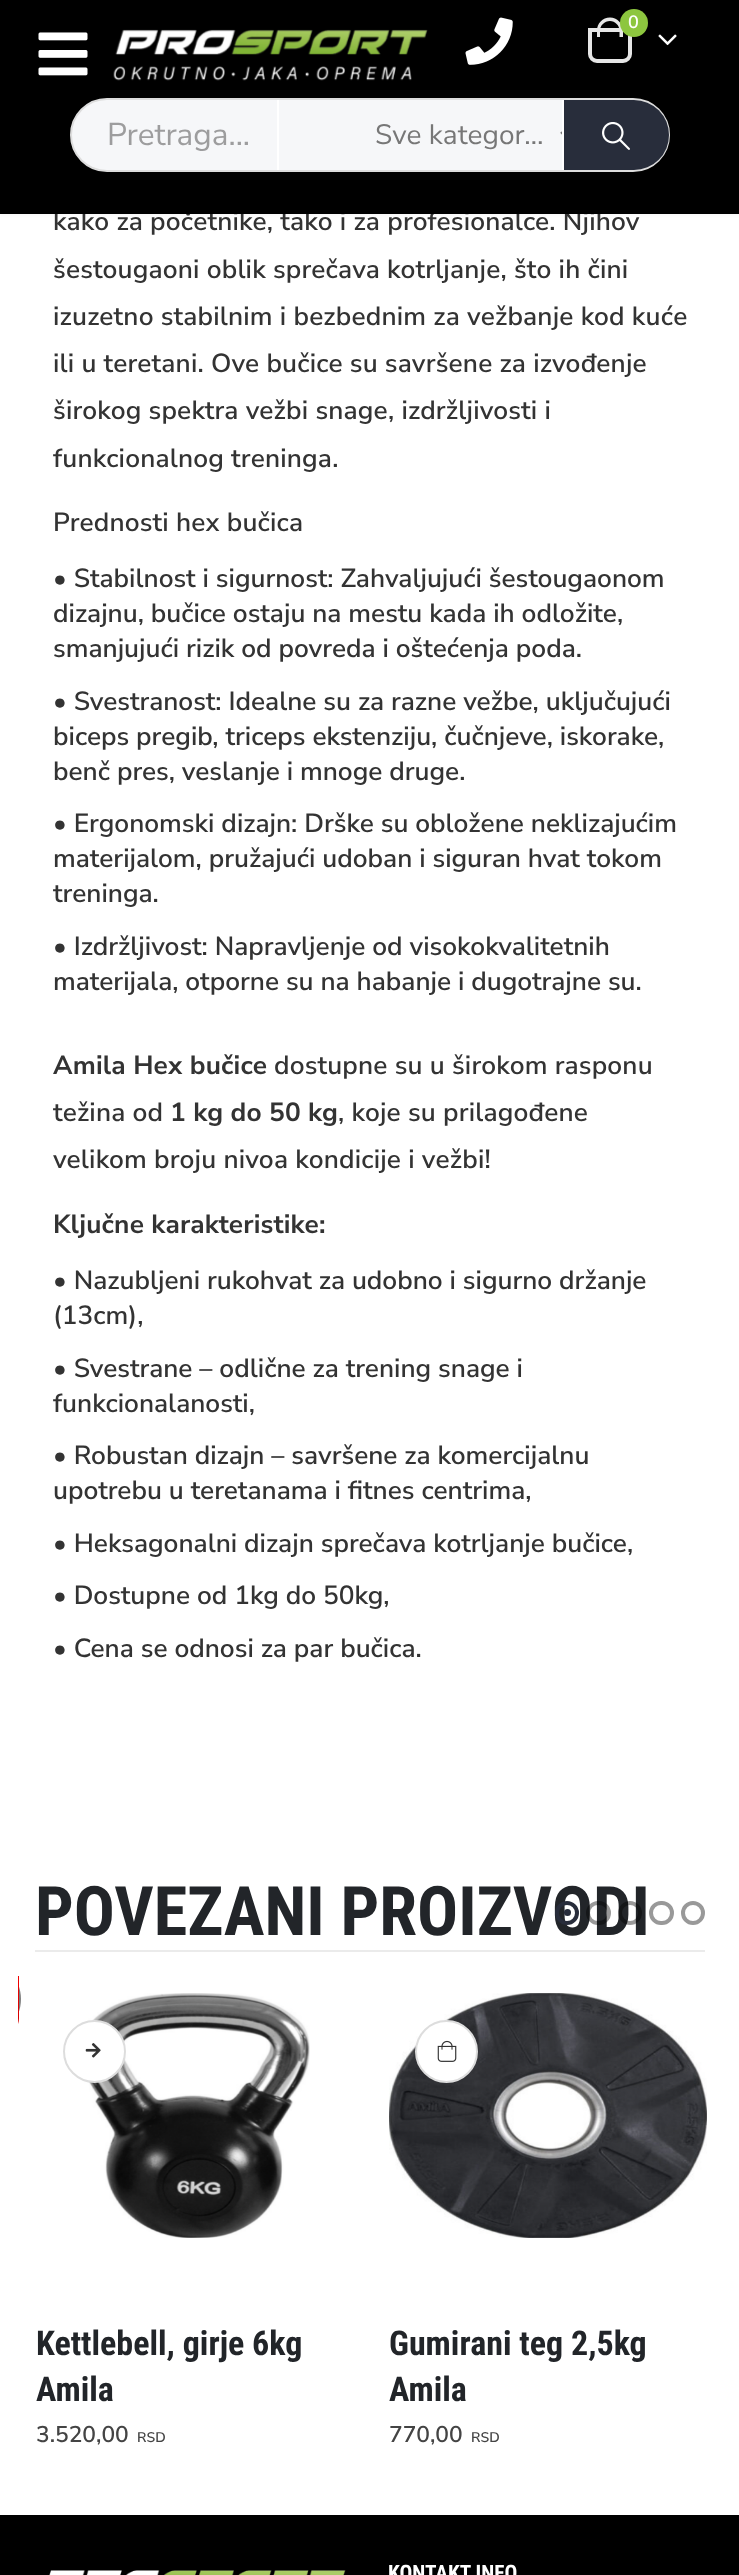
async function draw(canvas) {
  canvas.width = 739;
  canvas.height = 2575;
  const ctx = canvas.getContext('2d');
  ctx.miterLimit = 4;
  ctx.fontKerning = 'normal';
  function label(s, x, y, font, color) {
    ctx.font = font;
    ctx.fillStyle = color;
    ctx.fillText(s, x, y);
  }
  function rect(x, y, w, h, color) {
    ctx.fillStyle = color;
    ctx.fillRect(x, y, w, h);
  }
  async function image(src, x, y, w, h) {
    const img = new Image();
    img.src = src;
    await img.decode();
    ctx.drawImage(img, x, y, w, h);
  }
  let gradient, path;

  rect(0, 0, 739, 2575, '#fff');
  ctx.fillStyle = '#0000000f';
  ctx.filter = 'blur(2.5px)';
  ctx.beginPath();
  ctx.rect(0, 0, 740, 214);
  ctx.fill();
  ctx.filter = 'none';
  ctx.letterSpacing = '0.18px';
  label('kako za početnike, tako i za profesionalce. Njihov', 53, 230, '600 26.25px Nunito Sans', '#333');
  rect(0, 0, 739, 214, '#000');
  await image('assets/img1.png', 465, 17, 48, 48);
  ctx.beginPath();
  ctx.roundRect(590, 30, 40, 31, [0, 0, 7, 7]);
  ctx.strokeStyle = '#e6e6e6';
  ctx.lineWidth = 4;
  ctx.stroke();
  ctx.fillStyle = '#e6e6e6';
  path = new Path2D('M610 17.5C617 17.5 623 23.5 623 30.5V37H597V30.5C597 23.5 602.5 17.5 610 17.5ZM610 21C615 21 619.5 25.5 619.5 30.5V37H600V30.5C600 25.5 604.5 21 610 21Z');
  ctx.fill(path, 'evenodd');
  ctx.fillStyle = '#8dc63f';
  ctx.beginPath();
  ctx.arc(634, 23, 14, 0, 2 * Math.PI);
  ctx.fill();
  ctx.letterSpacing = '0px';
  label('0', 628, 28, '600 18px Nunito Sans', '#fff');
  await image('assets/img2.png', 658, 34, 19, 12);
  await image('assets/img3.png', 38, 32, 50, 44);
  await image('assets/img4.png', 113, 29, 315, 52);
  ctx.fillStyle = '#f6f7f9';
  ctx.beginPath();
  ctx.roundRect(71, 99, 598, 72, 36);
  ctx.fill();
  ctx.strokeStyle = '#ddd';
  ctx.lineWidth = 2;
  ctx.stroke();
  rect(277, 100, 2, 70, '#fff');
  label('Pretraga...', 107, 145, '31.5px Nunito Sans', '#9d9d9e');
  rect(562, 100, 2, 70, '#fff');
  ctx.letterSpacing = '0.1px';
  label('Sve kategor…', 375, 144, '28px Nunito Sans', '#777');
  await image('assets/img5.png', 560, 131, 2, 4);
  ctx.fillStyle = '#282d3b';
  ctx.beginPath();
  ctx.roundRect(564, 100, 105, 70, [0, 35, 35, 0]);
  ctx.fill();
  await image('assets/img6.png', 602, 122, 28, 28);
  ctx.letterSpacing = '0.18px';
  label('šestougaoni oblik sprečava kotrljanje, što ih čini', 53, 278, '600 26.25px Nunito Sans', '#333');
  label('izuzetno stabilnim i bezbednim za vežbanje kod kuće', 53, 325, '600 26.25px Nunito Sans', '#333');
  label('ili u teretani. Ove bučice su savršene za izvođenje', 53, 372, '600 26.25px Nunito Sans', '#333');
  label('širokog spektra vežbi snage, izdržljivosti i', 53, 419, '600 26.25px Nunito Sans', '#333');
  label('funkcionalnog treninga.', 53, 467, '600 26.25px Nunito Sans', '#333');
  label('Prednosti hex bučica', 53, 531, '600 26.25px Nunito Sans', '#333');
  ctx.letterSpacing = '0px';
  label('• Stabilnost i sigurnost: Zahvaljujući šestougaonom', 53, 587, '600 26.25px Nunito Sans', '#333');
  label('dizajnu, bučice ostaju na mestu kada ih odložite,', 53, 622, '600 26.25px Nunito Sans', '#333');
  label('smanjujući rizik od povreda i oštećenja poda.', 53, 657, '600 26.25px Nunito Sans', '#333');
  label('• Svestranost: Idealne su za razne vežbe, uključujući', 53, 710, '600 26.25px Nunito Sans', '#333');
  label('biceps pregib, triceps ekstenziju, čučnjeve, iskorake,', 53, 745, '600 26.25px Nunito Sans', '#333');
  label('benč pres, veslanje i mnoge druge.', 53, 780, '600 26.25px Nunito Sans', '#333');
  label('• Ergonomski dizajn: Drške su obložene neklizajućim', 53, 832, '600 26.25px Nunito Sans', '#333');
  label('materijalom, pružajući udoban i siguran hvat tokom', 53, 867, '600 26.25px Nunito Sans', '#333');
  label('treninga.', 53, 902, '600 26.25px Nunito Sans', '#333');
  label('• Izdržljivost: Napravljenje od visokokvalitetnih', 53, 955, '600 26.25px Nunito Sans', '#333');
  label('materijala, otporne su na habanje i dugotrajne su.', 53, 990, '600 26.25px Nunito Sans', '#333');
  ctx.letterSpacing = '0.18px';
  label('Amila Hex bučice', 53, 1074, 'bold 26.25px Nunito Sans', '#333');
  label('dostupne su u širokom rasponu', 274, 1074, '600 26.25px Nunito Sans', '#333');
  label('težina od', 53, 1121, '600 26.25px Nunito Sans', '#333');
  label('1 kg do 50 kg', 170, 1121, 'bold 26.25px Nunito Sans', '#333');
  label(', koje su prilagođene', 338, 1121, '600 26.25px Nunito Sans', '#333');
  label('velikom broju nivoa kondicije i vežbi!', 53, 1168, '600 26.25px Nunito Sans', '#333');
  label('Ključne karakteristike:', 53, 1233, 'bold 26.25px Nunito Sans', '#333');
  ctx.letterSpacing = '0px';
  label('• Nazubljeni rukohvat za udobno i sigurno držanje', 53, 1289, '600 26.25px Nunito Sans', '#333');
  label('(13cm),', 53, 1324, '600 26.25px Nunito Sans', '#333');
  label('• Svestrane – odlične za trening snage i', 53, 1377, '600 26.25px Nunito Sans', '#333');
  label('funkcionalanosti,', 53, 1412, '600 26.25px Nunito Sans', '#333');
  label('• Robustan dizajn – savršene za komercijalnu', 53, 1464, '600 26.25px Nunito Sans', '#333');
  label('upotrebu u teretanama i fitnes centrima,', 53, 1499, '600 26.25px Nunito Sans', '#333');
  label('• Heksagonalni dizajn sprečava kotrljanje bučice,', 53, 1552, '600 26.25px Nunito Sans', '#333');
  label('• Dostupne od 1kg do 50kg,', 53, 1604, '600 26.25px Nunito Sans', '#333');
  label('• Cena se odnosi za par bučica.', 53, 1657, '600 26.25px Nunito Sans', '#333');
  rect(35, 1950, 670, 2, '#ebebeb');
  label('POVEZANI PROIZVODI', 35, 1935, 'bold 68.25px Roboto Condensed', '#222529');
  ctx.beginPath();
  ctx.arc(567, 1913, 10, 0, 2 * Math.PI);
  ctx.strokeStyle = '#282d3b';
  ctx.lineWidth = 4;
  ctx.stroke();
  ctx.fillStyle = '#282d3b';
  ctx.beginPath();
  ctx.arc(567.5, 1912.5, 3.5, 0, 2 * Math.PI);
  ctx.fill();
  ctx.beginPath();
  ctx.roundRect(588, 1903, 21, 20, 10);
  ctx.strokeStyle = '#00000066';
  ctx.stroke();
  ctx.beginPath();
  ctx.arc(630, 1913, 10, 0, 2 * Math.PI);
  ctx.stroke();
  ctx.beginPath();
  ctx.roundRect(651, 1903, 21, 20, 10);
  ctx.strokeStyle = '#999';
  ctx.stroke();
  ctx.beginPath();
  ctx.arc(693, 1913, 10, 0, 2 * Math.PI);
  ctx.stroke();
  ctx.save();
  ctx.beginPath();
  ctx.rect(18, 1976, 705, 495);
  ctx.clip();
  ctx.fillStyle = '#808080';
  path = new Path2D('M-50 2023C-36 2042-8 2044 9 2027C25 2012 25 1986 9 1971C23 1987 22 2011 8 2025C-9 2042-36 2040-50 2023Z');
  ctx.fill(path);
  ctx.fillStyle = '#f00';
  ctx.beginPath();
  ctx.roundRect(0, 1958, 19, 79, [0, 39, 39, 0]);
  ctx.fill();
  gradient = ctx.createLinearGradient(-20, 1958, -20, 2037);
  gradient.addColorStop(0, '#00000000');
  gradient.addColorStop(1, '#00000033');
  ctx.fillStyle = gradient;
  ctx.beginPath();
  ctx.roundRect(0, 1958, 19, 79, [0, 39, 39, 0]);
  ctx.fill();
  ctx.restore();
  await image('assets/img7.png', 80, 1993, 230, 245);
  ctx.fillStyle = '#fff';
  ctx.beginPath();
  ctx.arc(94.5, 2051.5, 30.5, 0, 2 * Math.PI);
  ctx.fill();
  ctx.strokeStyle = '#ddd';
  ctx.lineWidth = 2;
  ctx.stroke();
  await image('assets/img8.png', 85, 2043, 16, 15);
  label('Kettlebell, girje 6kg', 36, 2355, 'bold 34px Roboto Condensed', '#222529');
  label('Amila', 36, 2401, 'bold 34px Roboto Condensed', '#222529');
  label('3.520,00', 36, 2442, '600 22.75px Nunito Sans', '#444');
  label('RSD', 137, 2442, '600 14px Nunito Sans', '#444');
  await image('assets/img9.png', 389, 1993, 318, 245);
  ctx.fillStyle = '#fff';
  ctx.beginPath();
  ctx.arc(446.5, 2051.5, 30.5, 0, 2 * Math.PI);
  ctx.fill();
  ctx.stroke();
  await image('assets/img10.png', 437, 2040, 20, 22);
  label('Gumirani teg 2,5kg', 389, 2355, 'bold 34px Roboto Condensed', '#222529');
  label('Amila', 389, 2401, 'bold 34px Roboto Condensed', '#222529');
  label('770,00', 389, 2442, '600 22.75px Nunito Sans', '#444');
  label('RSD', 471, 2442, '600 14px Nunito Sans', '#444');
  rect(0, 2515, 739, 60, '#000');
  await image('assets/img11.png', 49, 2570, 297, 5);
  label('KONTAKT INFO', 388, 2580, 'bold 21.25px Roboto Condensed', '#fff');
}

draw(document.querySelector('canvas'));
